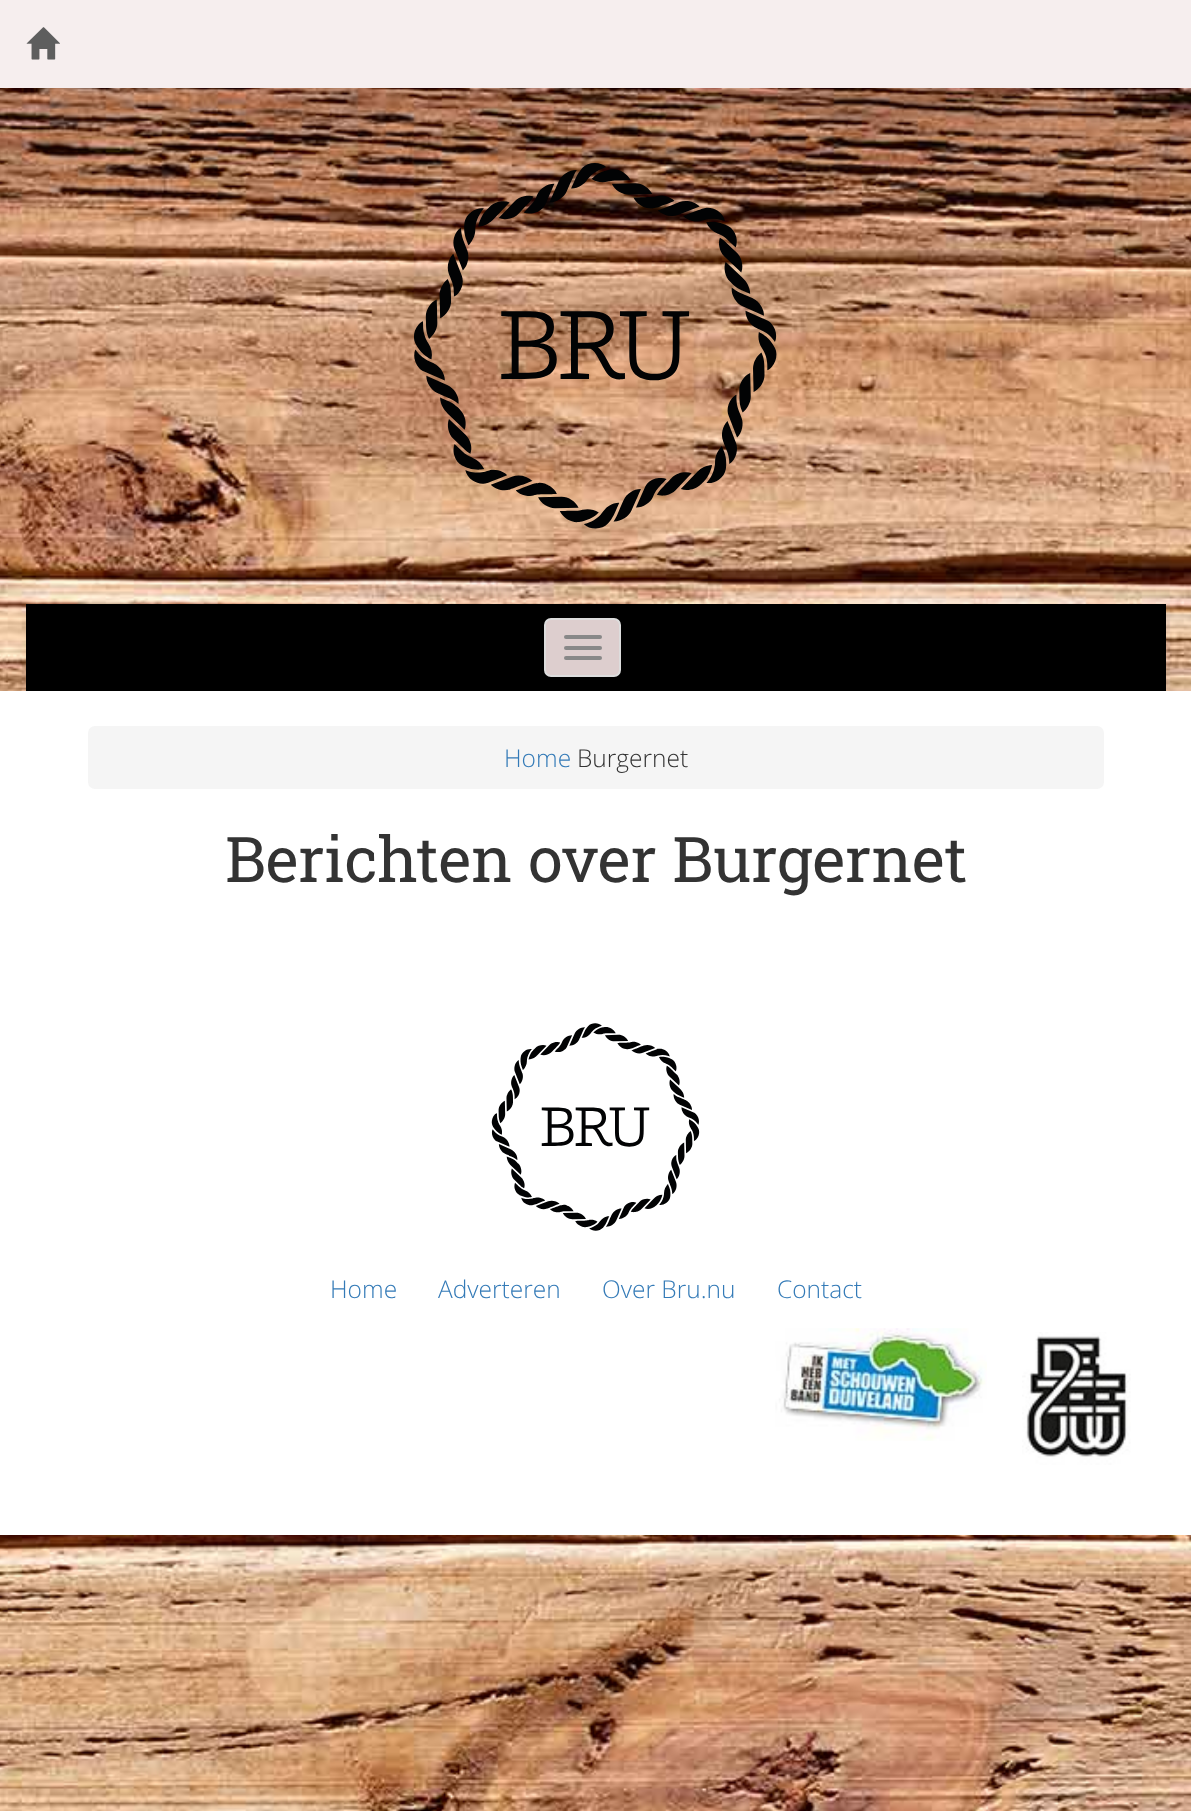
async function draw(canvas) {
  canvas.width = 1191;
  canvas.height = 1811;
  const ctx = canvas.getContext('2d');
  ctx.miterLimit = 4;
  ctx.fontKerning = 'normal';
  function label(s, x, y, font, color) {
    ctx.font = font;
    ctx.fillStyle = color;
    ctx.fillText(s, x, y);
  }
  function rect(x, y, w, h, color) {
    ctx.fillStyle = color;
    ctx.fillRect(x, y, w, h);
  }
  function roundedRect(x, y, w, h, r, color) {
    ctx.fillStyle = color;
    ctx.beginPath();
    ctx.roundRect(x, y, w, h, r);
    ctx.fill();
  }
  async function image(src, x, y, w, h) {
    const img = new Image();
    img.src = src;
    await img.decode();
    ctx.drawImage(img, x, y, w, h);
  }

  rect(0, 0, 1191, 1811, '#fff');
  await image('assets/img1.png', 0, 88, 1191, 1723);
  rect(0, 0, 1191, 88, '#f6eeee');
  await image('assets/img2.png', 26, 27, 34, 33);
  await image('assets/img3.png', 413, 163, 364, 366);
  ctx.fillStyle = '#00000012';
  ctx.filter = 'blur(4.5px)';
  ctx.beginPath();
  ctx.roundRect(26, 606, 1140, 87, 7);
  ctx.fill();
  ctx.filter = 'none';
  rect(26, 604, 1140, 87, '#000');
  ctx.fillStyle = '#ddcece';
  ctx.beginPath();
  ctx.roundRect(545, 619, 75, 57, 6);
  ctx.fill();
  ctx.strokeStyle = '#ddd';
  ctx.lineWidth = 2;
  ctx.stroke();
  roundedRect(564, 635, 38, 4, 2, '#888');
  roundedRect(564, 646, 38, 4, 2, '#888');
  roundedRect(564, 656, 38, 4, 2, '#888');
  rect(0, 691, 1191, 293, '#fff');
  roundedRect(88, 726, 1016, 63, 7, '#f5f5f5');
  label('Home', 504, 767, '300 24.5px Open Sans', '#337ab7');
  label('Burgernet', 577, 767, '300 24.5px Open Sans', '#333');
  label('Berichten over Burgernet', 225, 882, '63px Roboto Slab', '#333');
  rect(0, 984, 1191, 551, '#fff');
  await image('assets/img4.png', 491, 1023, 209, 208);
  label('Home', 330, 1298, '300 24.5px Open Sans', '#337ab7');
  label('Adverteren', 438, 1298, '300 24.5px Open Sans', '#337ab7');
  label('Over Bru.nu', 602, 1298, '300 24.5px Open Sans', '#337ab7');
  label('Contact', 777, 1298, '300 24.5px Open Sans', '#337ab7');
  await image('assets/img5.png', 775, 1328, 212, 113);
  await image('assets/img6.png', 1022, 1332, 109, 133);
}

draw(document.querySelector('canvas'));
